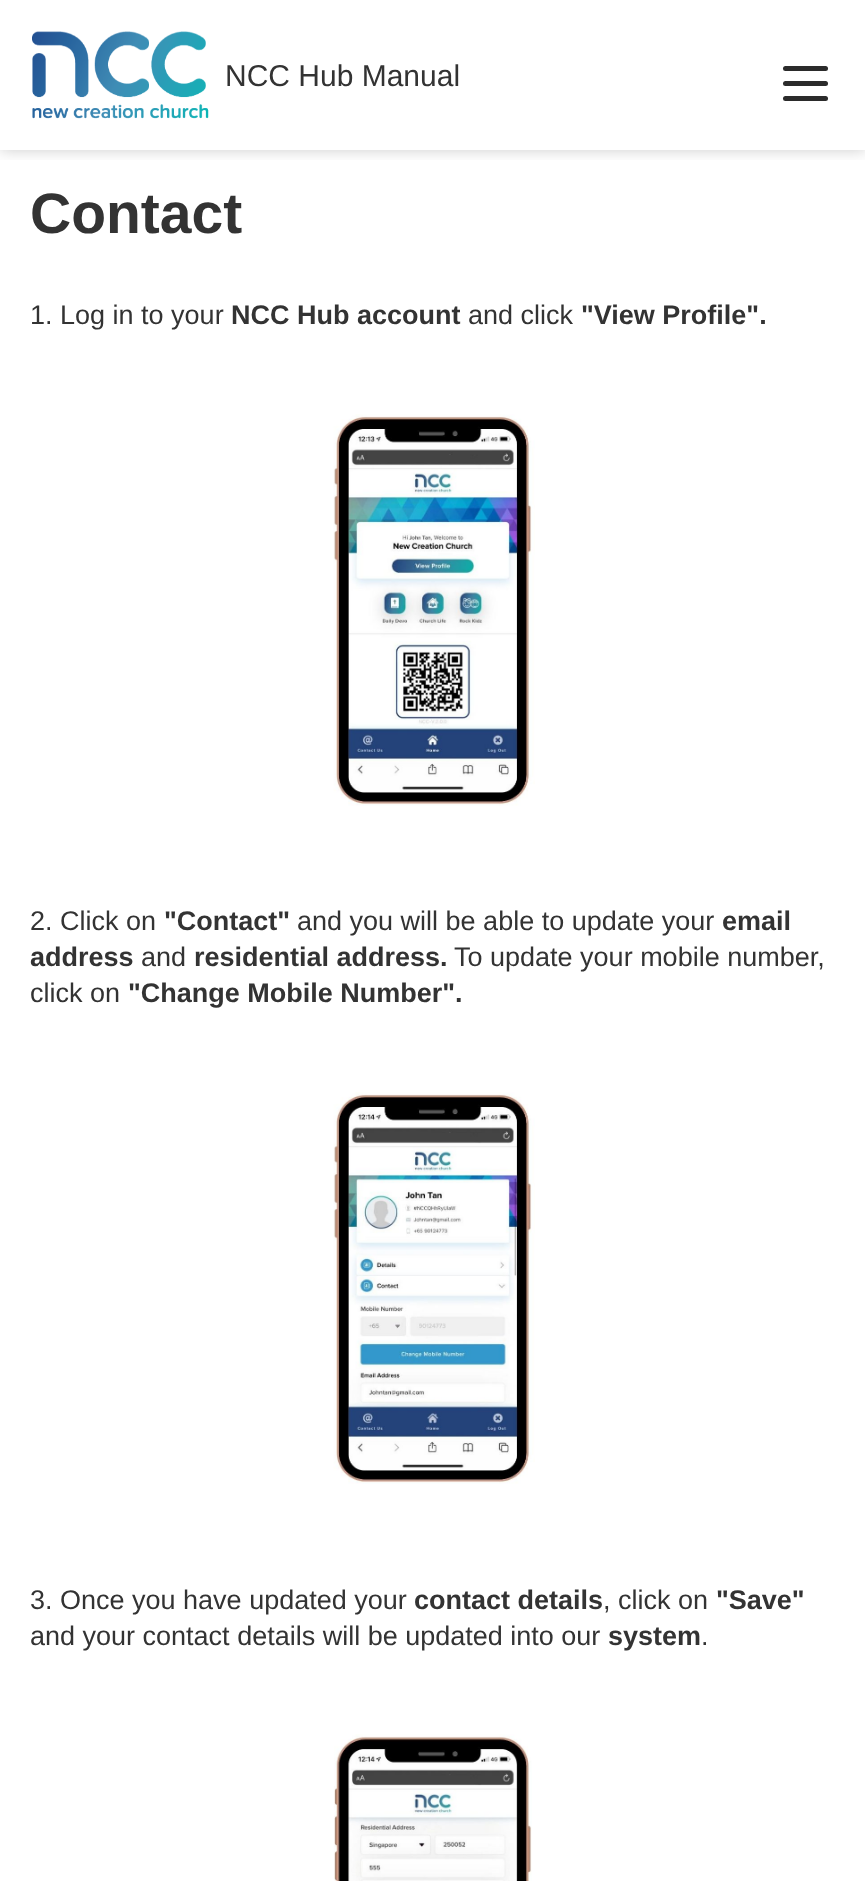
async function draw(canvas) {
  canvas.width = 865;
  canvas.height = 1881;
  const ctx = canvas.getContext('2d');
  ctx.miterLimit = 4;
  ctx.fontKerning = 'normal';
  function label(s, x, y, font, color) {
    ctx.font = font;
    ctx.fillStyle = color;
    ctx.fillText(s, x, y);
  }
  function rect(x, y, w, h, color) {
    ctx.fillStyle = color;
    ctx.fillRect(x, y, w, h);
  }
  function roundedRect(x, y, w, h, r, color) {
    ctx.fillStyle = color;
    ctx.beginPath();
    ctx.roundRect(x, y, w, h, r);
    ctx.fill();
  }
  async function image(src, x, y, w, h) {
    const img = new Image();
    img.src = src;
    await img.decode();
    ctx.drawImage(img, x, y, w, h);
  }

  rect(0, 0, 865, 1881, '#fff');
  ctx.save();
  ctx.beginPath();
  ctx.rect(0, 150, 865, 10);
  ctx.clip();
  ctx.fillStyle = '#00000033';
  ctx.filter = 'blur(7.5px)';
  ctx.beginPath();
  ctx.rect(0, 0, 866, 150);
  ctx.fill();
  ctx.filter = 'none';
  ctx.restore();
  await image('assets/img1.png', 32, 31, 177, 88);
  label('NCC Hub Manual', 225, 86, '30px Liberation Sans', '#333');
  roundedRect(783, 66, 45, 5, 2.5, '#2b2b2b');
  roundedRect(783, 81, 45, 5, 2.5, '#2b2b2b');
  roundedRect(783, 96, 45, 5, 2.5, '#2b2b2b');
  label('Contact', 30, 233, 'bold 57px Liberation Sans', '#333');
  label('1. Log in to your', 30, 324, '27px Liberation Sans', '#333');
  label('NCC Hub account', 231, 324, 'bold 27px Liberation Sans', '#333');
  label('and click', 468, 324, '27px Liberation Sans', '#333');
  label('"View Profile".', 581, 324, 'bold 27px Liberation Sans', '#333');
  await image('assets/img2.png', 333, 414, 202, 392);
  label('2. Click on', 30, 930, '27px Liberation Sans', '#333');
  label('"Contact"', 164, 930, 'bold 27px Liberation Sans', '#333');
  label('and you will be able to update your', 297, 930, '27px Liberation Sans', '#333');
  label('email', 722, 930, 'bold 27px Liberation Sans', '#333');
  label('address', 30, 966, 'bold 27px Liberation Sans', '#333');
  label('and', 141, 966, '27px Liberation Sans', '#333');
  label('residential address.', 194, 966, 'bold 27px Liberation Sans', '#333');
  label('To update your mobile number,', 454, 966, '27px Liberation Sans', '#333');
  label('click on', 30, 1002, '27px Liberation Sans', '#333');
  label('"Change Mobile Number".', 128, 1002, 'bold 27px Liberation Sans', '#333');
  await image('assets/img3.png', 333, 1092, 202, 392);
  label('3. Once you have updated your', 30, 1609, '27px Liberation Sans', '#333');
  label('contact details', 414, 1609, 'bold 27px Liberation Sans', '#333');
  label(', click on', 603, 1609, '27px Liberation Sans', '#333');
  label('"Save"', 716, 1609, 'bold 27px Liberation Sans', '#333');
  label('and your contact details will be updated into our', 30, 1645, '27px Liberation Sans', '#333');
  label('system', 608, 1645, 'bold 27px Liberation Sans', '#333');
  label('.', 701, 1645, '27px Liberation Sans', '#333');
  await image('assets/img4.png', 334, 1734, 198, 147);
}

draw(document.querySelector('canvas'));
